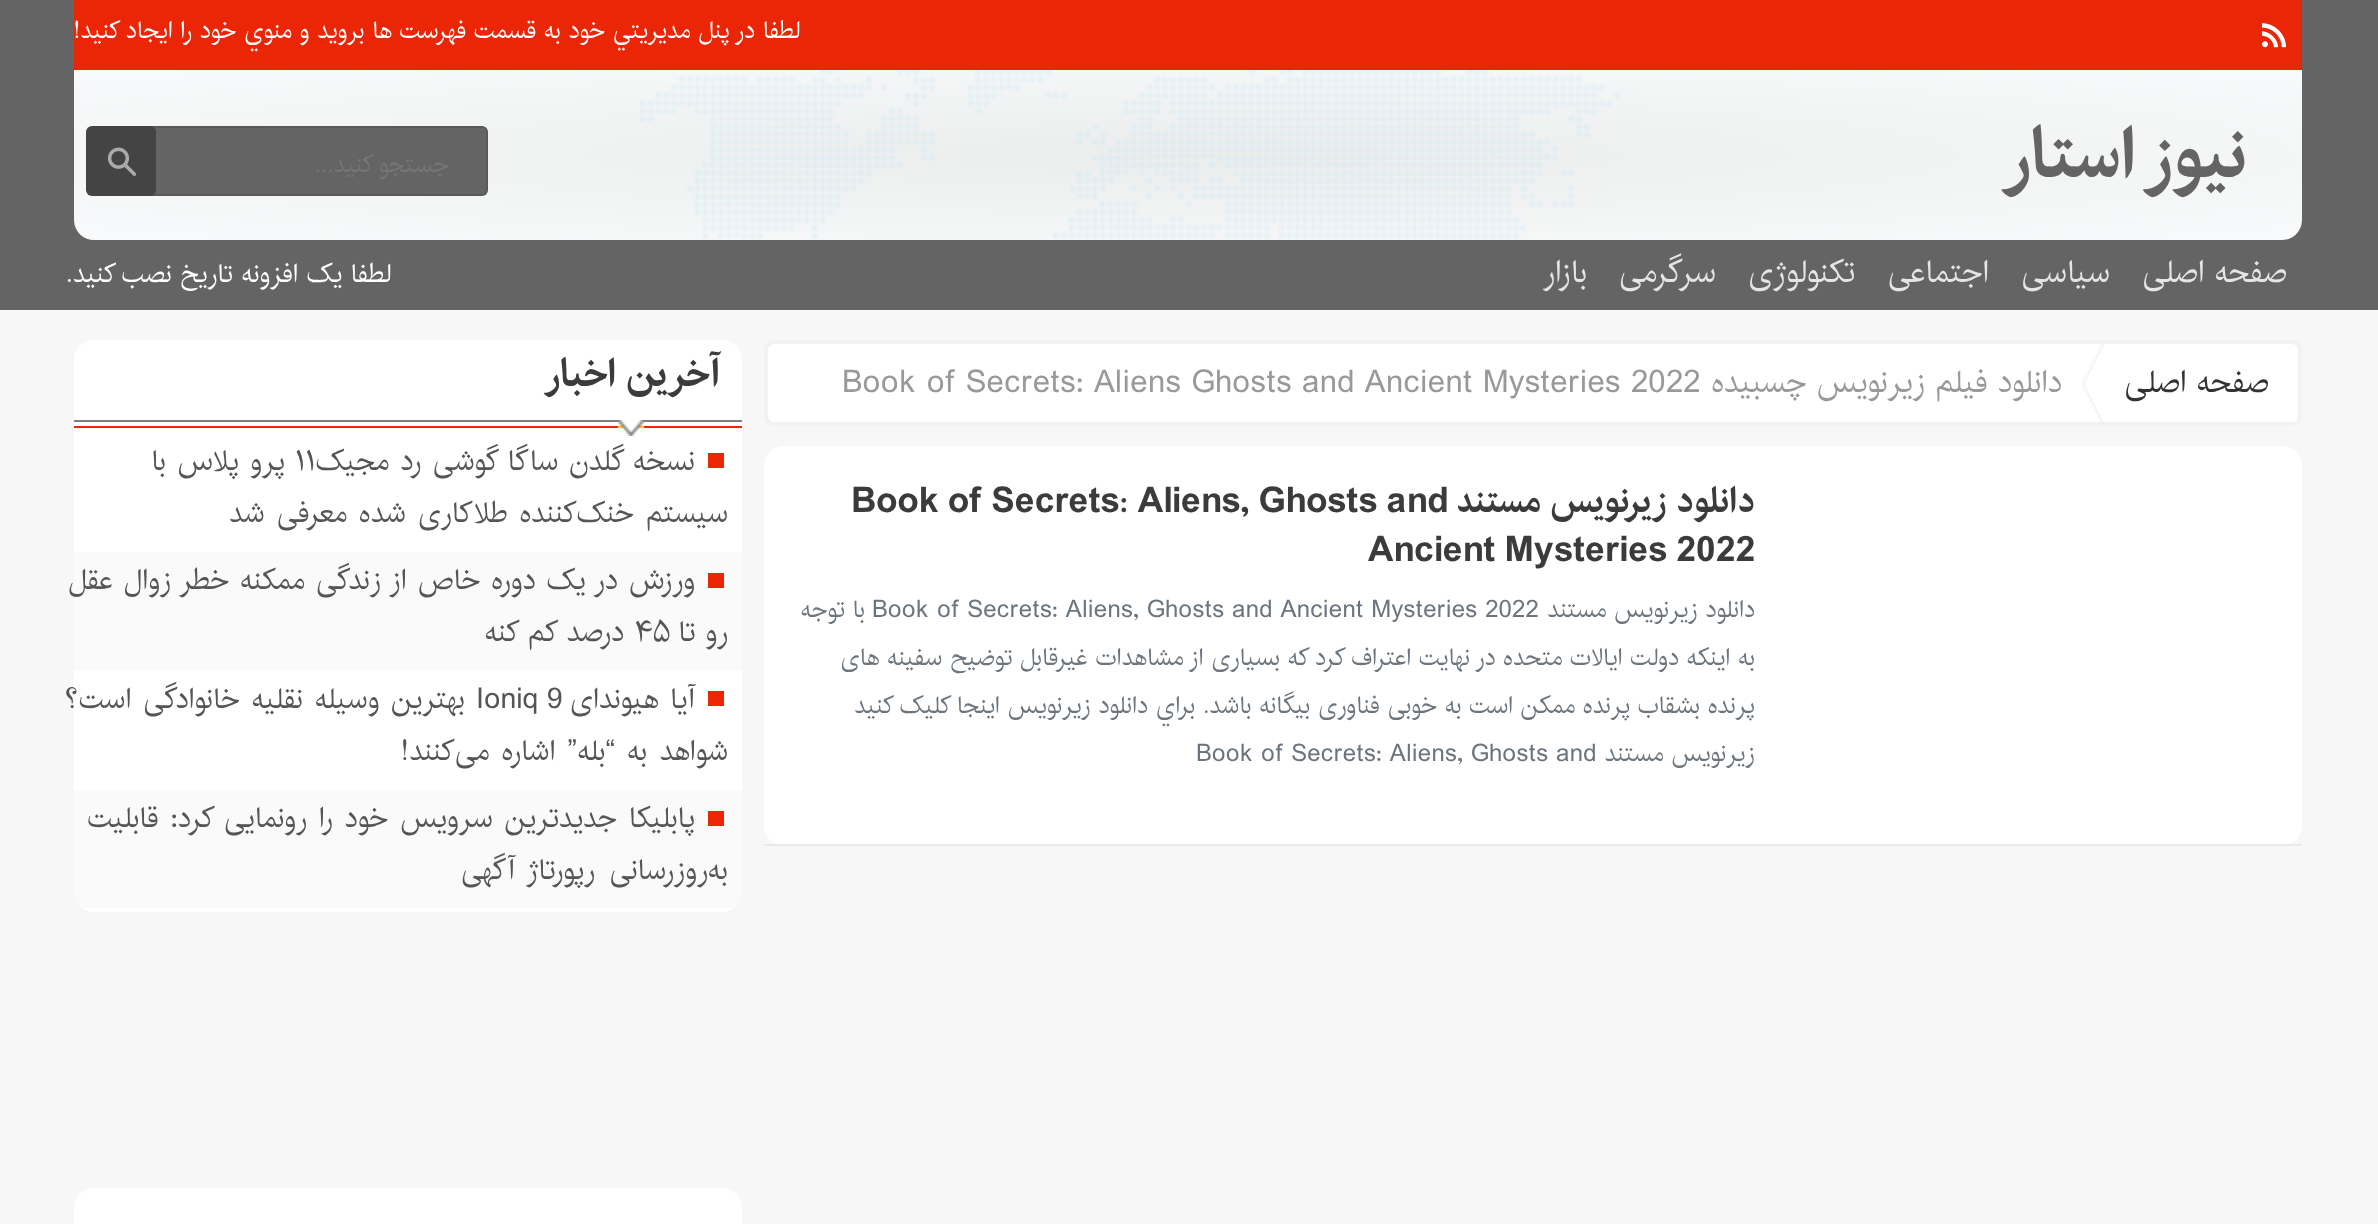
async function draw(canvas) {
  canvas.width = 2378;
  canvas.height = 1224;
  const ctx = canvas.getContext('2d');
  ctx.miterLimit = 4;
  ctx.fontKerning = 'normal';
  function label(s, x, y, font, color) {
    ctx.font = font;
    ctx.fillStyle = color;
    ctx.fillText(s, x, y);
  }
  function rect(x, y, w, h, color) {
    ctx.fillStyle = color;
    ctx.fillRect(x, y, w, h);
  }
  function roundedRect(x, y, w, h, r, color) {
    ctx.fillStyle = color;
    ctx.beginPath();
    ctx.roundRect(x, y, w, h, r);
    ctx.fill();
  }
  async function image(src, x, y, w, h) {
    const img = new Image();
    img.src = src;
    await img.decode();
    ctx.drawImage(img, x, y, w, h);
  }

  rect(0, 0, 2378, 1224, '#f7f7f7');
  rect(0, 0, 2378, 310, '#646464');
  rect(74, 0, 2228, 70, '#ea2606');
  await image('assets/img1.png', 2262, 23, 24, 25);
  ctx.direction = 'rtl';
  label('لطفا در پنل مديريتي خود به قسمت فهرست ها برويد و منوي خود را ايجاد كنيد!', 800, 38, '24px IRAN', '#fff');
  await image('assets/img2.png', 74, 70, 2228, 170);
  label('نیوز استار', 2247, 177, 'bold 69.5px IRAN', '#646464');
  roundedRect(114, 126, 374, 70, 6, '#646464');
  ctx.beginPath();
  ctx.roundRect(115, 127, 372, 68, 5);
  ctx.strokeStyle = '#0000001a';
  ctx.lineWidth = 2;
  ctx.stroke();
  label('جستجو کنید...', 449, 172, '24px IRAN', '#757575');
  roundedRect(86, 126, 70, 70, 6, '#444');
  await image('assets/img3.png', 107, 147, 30, 29);
  label('صفحه اصلی', 2287, 282, '31.2px IRAN', '#e5e5e5');
  label('سیاسی', 2110, 282, '31.2px IRAN', '#e5e5e5');
  label('اجتماعی', 1989, 282, '31.2px IRAN', '#e5e5e5');
  label('تکنولوژی', 1855, 282, '31.2px IRAN', '#e5e5e5');
  label('سرگرمی', 1716, 282, '31.2px IRAN', '#e5e5e5');
  label('بازار', 1587, 282, '31.2px IRAN', '#e5e5e5');
  label('لطفا یک افزونه تاریخ نصب کنید.', 391, 282, '26px IRAN', '#fff');
  ctx.beginPath();
  ctx.roundRect(766, 342, 1534, 82, 8);
  ctx.fill();
  ctx.strokeStyle = '#f2f2f2';
  ctx.lineWidth = 4;
  ctx.stroke();
  label('صفحه اصلی', 2269, 392, '31.2px IRAN', '#333');
  await image('assets/img4.png', 2082, 344, 22, 80);
  label('دانلود فیلم زیرنویس چسبیده', 2062, 392, '31.2px IRAN', '#999');
  ctx.direction = 'ltr';
  label('Book of Secrets: Aliens Ghosts and Ancient Mysteries 2022', 842, 392, '31.2px IRAN', '#999');
  roundedRect(764, 446, 1538, 400, 20, '#fff');
  rect(764, 844, 1538, 2, '#e9e9e9');
  ctx.direction = 'rtl';
  label('دانلود زیرنویس مستند', 1755, 512, 'bold 35.25px IRAN', '#3b3b3b');
  ctx.direction = 'ltr';
  label('Book of Secrets: Aliens, Ghosts and', 851, 512, 'bold 35.25px IRAN', '#3b3b3b');
  label('Ancient Mysteries 2022', 1368, 561, 'bold 35.25px IRAN', '#3b3b3b');
  ctx.direction = 'rtl';
  label('دانلود زیرنویس مستند', 1755, 617, '24px IRAN', '#6c757d');
  ctx.direction = 'ltr';
  label('Book of Secrets: Aliens, Ghosts and Ancient Mysteries 2022', 872, 617, '24px IRAN', '#6c757d');
  ctx.direction = 'rtl';
  label('با توجه', 865, 617, '24px IRAN', '#6c757d');
  label('به اینکه دولت ایالات متحده در نهایت اعتراف کرد که بسیاری از مشاهدات غیرقابل توضیح سفینه های', 1755, 665, '24px IRAN', '#6c757d');
  label('پرنده بشقاب پرنده ممکن است به خوبی فناوری بیگانه باشد. براي دانلود زيرنويس اينجا کليک کنيد', 1755, 713, '24px IRAN', '#6c757d');
  label('زیرنویس مستند', 1755, 761, '24px IRAN', '#6c757d');
  ctx.direction = 'ltr';
  label('Book of Secrets: Aliens, Ghosts and', 1196, 761, '24px IRAN', '#6c757d');
  roundedRect(74, 340, 668, 572, 20, '#fff');
  rect(74, 426, 668, 2, '#ea2606');
  rect(74, 420, 668, 2, '#7e7e7e');
  ctx.direction = 'rtl';
  label('آخرین اخبار', 720, 386, 'bold 38.5px IRAN', '#3b3b3b');
  await image('assets/img5.png', 618, 420, 26, 16);
  rect(708, 453, 16, 15, '#ea2606');
  ctx.letterSpacing = '-0.4px';
  ctx.wordSpacing = '2px';
  label('نسخه گلدن ساگا گوشی رد مجیک', 695, 470, '28.6px IRAN', '#555');
  ctx.wordSpacing = '0px';
  ctx.direction = 'ltr';
  label('۱۱', 295, 470, '28.6px IRAN', '#555');
  ctx.wordSpacing = '2px';
  ctx.direction = 'rtl';
  label('پرو پلاس با', 285, 470, '28.6px IRAN', '#555');
  ctx.wordSpacing = '2.75px';
  label('سیستم خنک‌کننده طلاکاری شده معرفی شد', 728, 522, '28.6px IRAN', '#555');
  rect(74, 552, 668, 118, '#fafafa');
  rect(708, 573, 16, 15, '#ea2606');
  ctx.wordSpacing = '1.8px';
  label('ورزش در یک دوره خاص از زندگی ممکنه خطر زوال عقل', 695, 589, '28.6px IRAN', '#555');
  ctx.wordSpacing = '1px';
  label('رو تا', 728, 641, '28.6px IRAN', '#555');
  ctx.wordSpacing = '0px';
  ctx.direction = 'ltr';
  label('۴۵', 635, 641, '28.6px IRAN', '#555');
  ctx.wordSpacing = '2px';
  ctx.direction = 'rtl';
  label('درصد کم کنه', 624, 641, '28.6px IRAN', '#555');
  rect(708, 691, 16, 15, '#ea2606');
  label('آیا هیوندای', 695, 708, '28.6px IRAN', '#555');
  ctx.wordSpacing = '0px';
  ctx.direction = 'ltr';
  label('Ioniq 9', 476, 708, '28.6px IRAN', '#555');
  ctx.wordSpacing = '2.5px';
  ctx.direction = 'rtl';
  label('بهترین وسیله نقلیه خانوادگی است؟', 465, 708, '28.6px IRAN', '#555');
  ctx.wordSpacing = '3px';
  label('شواهد به “بله” اشاره می‌کنند!', 728, 760, '28.6px IRAN', '#555');
  ctx.save();
  ctx.beginPath();
  ctx.roundRect(74, 340, 668, 572, 20);
  ctx.clip();
  rect(74, 790, 668, 118, '#fafafa');
  ctx.restore();
  rect(708, 811, 16, 15, '#ea2606');
  ctx.wordSpacing = '2.75px';
  label('پابلیکا جدیدترین سرویس خود را رونمایی کرد: قابلیت', 695, 827, '28.6px IRAN', '#555');
  ctx.wordSpacing = '5px';
  label('به‌روزرسانی رپورتاژ آگهی', 728, 879, '28.6px IRAN', '#555');
  roundedRect(74, 1188, 668, 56, 20, '#fff');
}

draw(document.querySelector('canvas'));
